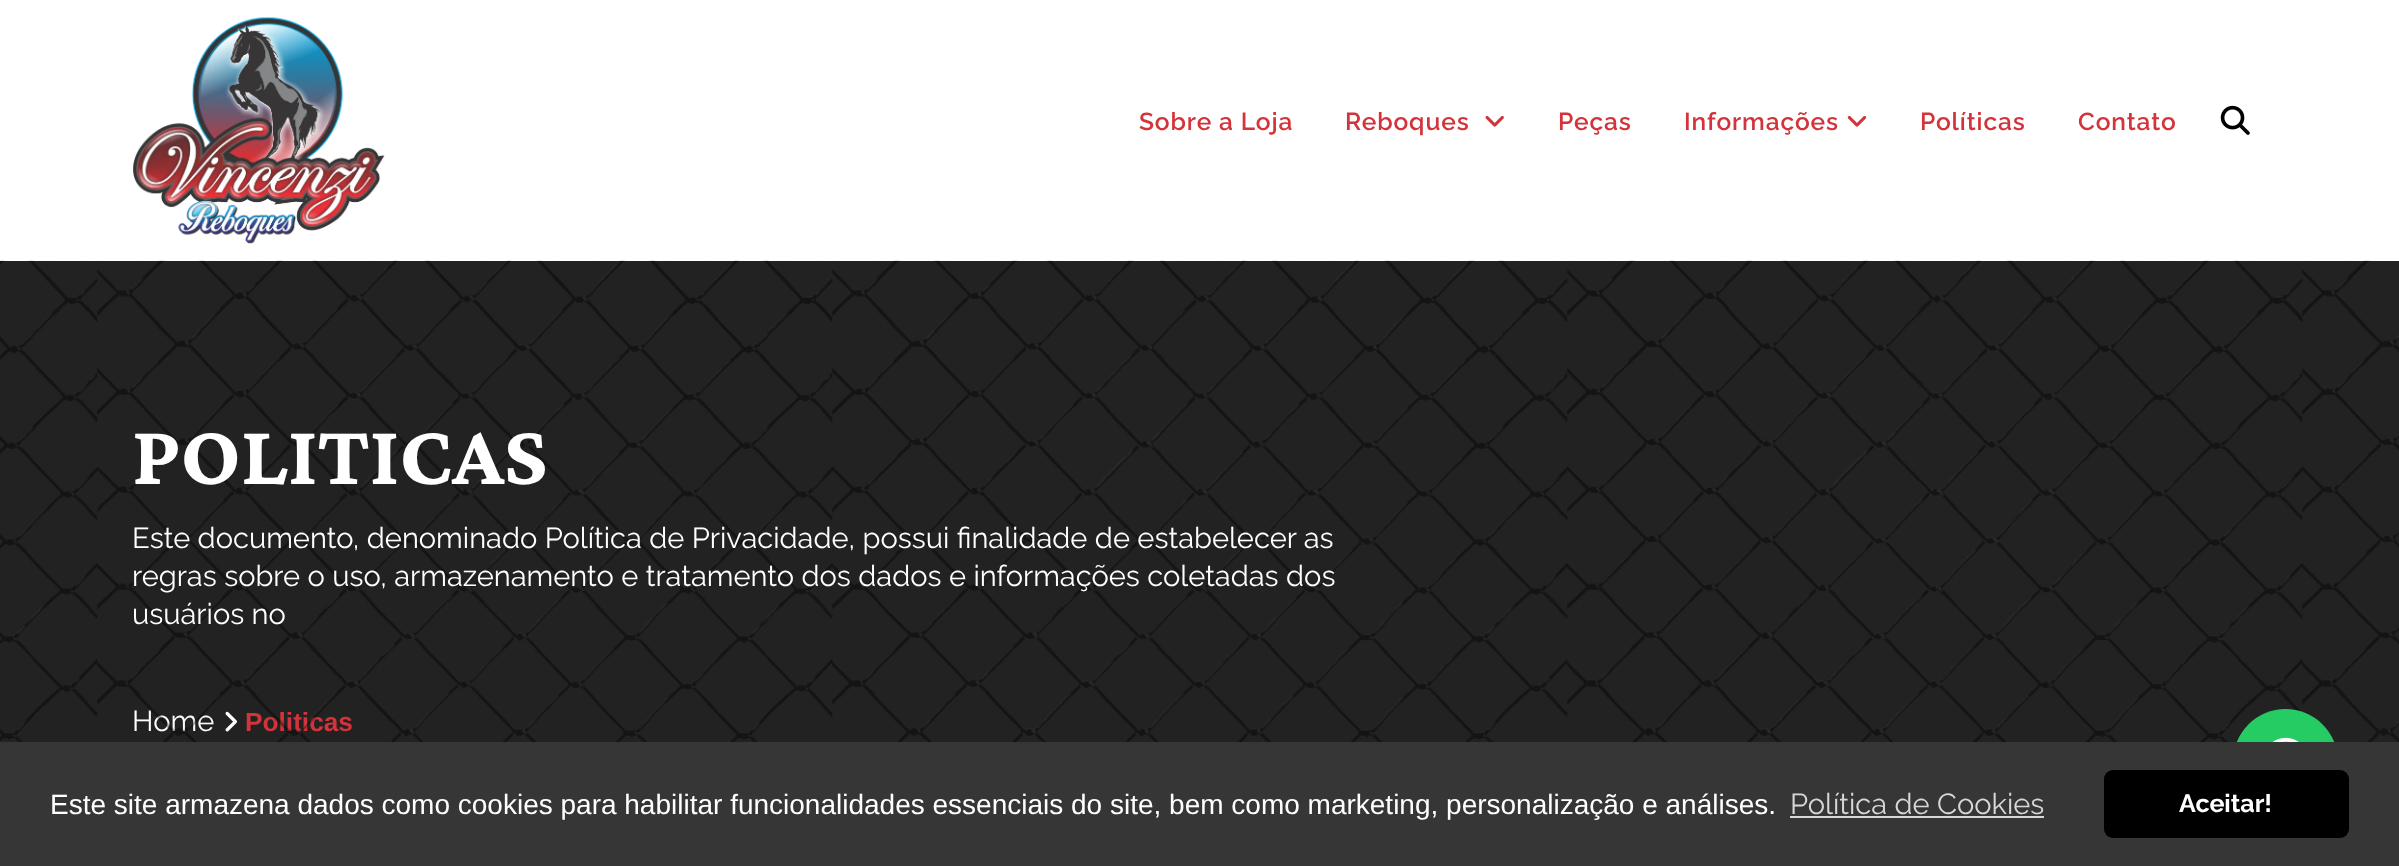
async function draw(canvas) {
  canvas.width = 2399;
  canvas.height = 866;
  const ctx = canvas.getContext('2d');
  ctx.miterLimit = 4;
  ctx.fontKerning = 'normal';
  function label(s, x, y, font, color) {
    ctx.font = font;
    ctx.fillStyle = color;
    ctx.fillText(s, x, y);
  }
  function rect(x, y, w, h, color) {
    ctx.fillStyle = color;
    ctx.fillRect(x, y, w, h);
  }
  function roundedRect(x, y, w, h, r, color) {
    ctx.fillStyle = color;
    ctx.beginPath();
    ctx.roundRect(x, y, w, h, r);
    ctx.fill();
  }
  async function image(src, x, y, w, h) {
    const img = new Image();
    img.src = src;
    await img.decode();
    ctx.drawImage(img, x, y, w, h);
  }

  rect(0, 0, 2399, 866, '#fff');
  await image('assets/img1.png', 133, 17, 252, 227);
  ctx.letterSpacing = '0.9px';
  label('Sobre a Loja', 1139, 130, '600 24.5px Raleway', '#d3333a');
  label('Reboques', 1345, 130, '600 24.5px Raleway', '#d3333a');
  await image('assets/img2.png', 1485, 116, 19, 11);
  label('Peças', 1558, 130, '600 24.5px Raleway', '#d3333a');
  label('Informações', 1684, 130, '600 24.5px Raleway', '#d3333a');
  await image('assets/img3.png', 1847, 116, 20, 11);
  label('Políticas', 1920, 130, '600 24.5px Raleway', '#d3333a');
  label('Contato', 2078, 130, '600 24.5px Raleway', '#d3333a');
  await image('assets/img4.png', 2220, 105, 30, 30);
  rect(0, 261, 2399, 481, '#222');
  ctx.letterSpacing = '0px';
  label('Home', 132, 731, '29.05px Raleway', '#fff');
  await image('assets/img6.png', 225, 711, 12, 21);
  label('Politicas', 245, 731, 'bold 26.25px Liberation Sans', '#d3333a');
  await image('assets/img5.png', 0, 260, 2399, 482);
  label('POLITICAS', 132, 484, 'bold 87.5px Crimson Pro', '#fff');
  label('Este documento, denominado Política de Privacidade, possui finalidade de estabelecer as', 132, 548, '29.05px Raleway', '#fff');
  label('regras sobre o uso, armazenamento e tratamento dos dados e informações coletadas dos', 132, 586, '29.05px Raleway', '#fff');
  label('usuários no', 132, 624, '29.05px Raleway', '#fff');
  ctx.fillStyle = '#24cc63';
  ctx.beginPath();
  ctx.arc(2285.5, 761.5, 52.5, 0, 2 * Math.PI);
  ctx.fill();
  rect(0, 742, 2399, 124, '#363636');
  label('Este site armazena dados como cookies para habilitar funcionalidades essenciais do site, bem como marketing, personalização e análises.', 50, 814, '28px Liberation Sans', '#fff');
  label('Política de Cookies', 1790, 814, '29.05px Raleway', '#d7d7d7');
  rect(1790, 816, 254, 2, '#d7d7d7');
  roundedRect(2104, 770, 245, 68, 9, '#000');
  label('Aceitar!', 2179, 812, 'bold 25px Raleway', '#fff');
  await image('assets/img7.png', 2272, 737, 27, 5);
}

draw(document.querySelector('canvas'));
